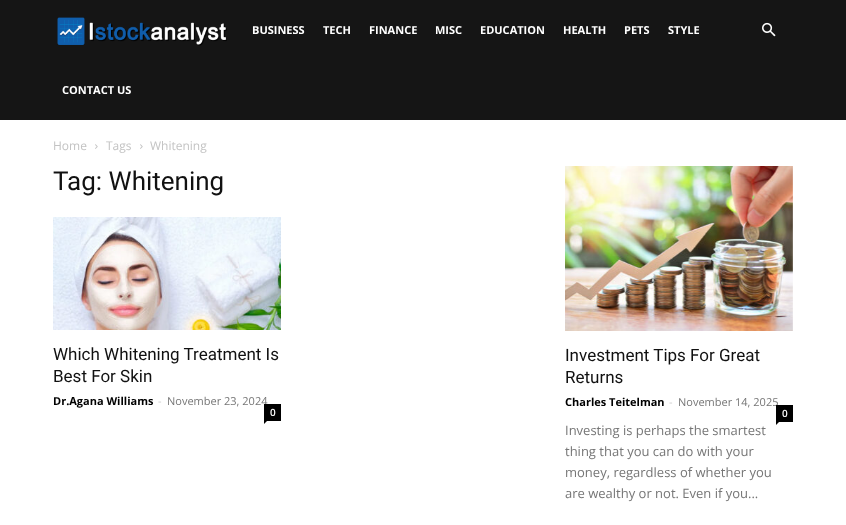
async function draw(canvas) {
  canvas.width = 846;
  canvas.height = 525;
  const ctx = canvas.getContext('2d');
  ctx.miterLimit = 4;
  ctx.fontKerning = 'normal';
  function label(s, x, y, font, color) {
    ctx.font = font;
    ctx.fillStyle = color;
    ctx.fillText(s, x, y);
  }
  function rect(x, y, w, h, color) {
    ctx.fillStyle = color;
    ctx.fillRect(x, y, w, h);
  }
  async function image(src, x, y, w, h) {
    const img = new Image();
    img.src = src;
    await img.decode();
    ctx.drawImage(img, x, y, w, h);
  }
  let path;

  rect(0, 0, 846, 525, '#fff');
  rect(0, 0, 846, 120, '#151515');
  await image('assets/img1.png', 57, 17, 170, 29);
  label('BUSINESS', 252, 34, 'bold 11px Open Sans', '#fff');
  label('TECH', 323, 34, 'bold 11px Open Sans', '#fff');
  label('FINANCE', 369, 34, 'bold 11px Open Sans', '#fff');
  label('MISC', 435, 34, 'bold 11px Open Sans', '#fff');
  label('EDUCATION', 480, 34, 'bold 11px Open Sans', '#fff');
  label('HEALTH', 563, 34, 'bold 11px Open Sans', '#fff');
  label('PETS', 624, 34, 'bold 11px Open Sans', '#fff');
  label('STYLE', 668, 34, 'bold 11px Open Sans', '#fff');
  label('CONTACT US', 62, 94, 'bold 11px Open Sans', '#fff');
  await image('assets/img2.png', 762, 22, 14, 15);
  label('Home', 53, 150, '12px Open Sans', '#c3c3c3');
  await image('assets/img3.png', 95, 144, 3, 5);
  label('Tags', 106, 150, '12px Open Sans', '#c3c3c3');
  await image('assets/img3.png', 140, 144, 3, 5);
  label('Whitening', 150, 150, '12px Open Sans', '#c3c3c3');
  label('Tag: Whitening', 53, 190, '26px Roboto', '#111');
  await image('assets/img4.png', 53, 217, 228, 113);
  label('Which Whitening Treatment Is', 53, 360, '17px Roboto', '#111');
  label('Best For Skin', 53, 382, '17px Roboto', '#111');
  label('Dr.Agana Williams', 53, 405, 'bold 11px Open Sans', '#000');
  label('-', 158, 405, '11px Open Sans', '#ccc');
  label('November 23, 2024', 167, 405, '11px Open Sans', '#767676');
  rect(264, 404, 17, 17, '#000');
  label('0', 270, 416, '600 10px Open Sans', '#fff');
  ctx.fillStyle = '#000';
  path = new Path2D('M264 421H267L264 424Z');
  ctx.fill(path);
  await image('assets/img5.png', 565, 166, 228, 165);
  label('Investment Tips For Great', 565, 361, '17px Roboto', '#111');
  label('Returns', 565, 383, '17px Roboto', '#111');
  label('Charles Teitelman', 565, 406, 'bold 11px Open Sans', '#000');
  label('-', 669, 406, '11px Open Sans', '#ccc');
  label('November 14, 2025', 678, 406, '11px Open Sans', '#767676');
  rect(776, 405, 17, 17, '#000');
  label('0', 782, 417, '600 10px Open Sans', '#fff');
  ctx.fillStyle = '#000';
  path = new Path2D('M776 422H779L776 425Z');
  ctx.fill(path);
  label('Investing is perhaps the smartest', 565, 435, '13px Open Sans', '#767676');
  label('thing that you can do with your', 565, 456, '13px Open Sans', '#767676');
  label('money, regardless of whether you', 565, 477, '13px Open Sans', '#767676');
  label('are wealthy or not. Even if you...', 565, 498, '13px Open Sans', '#767676');
}

draw(document.querySelector('canvas'));
